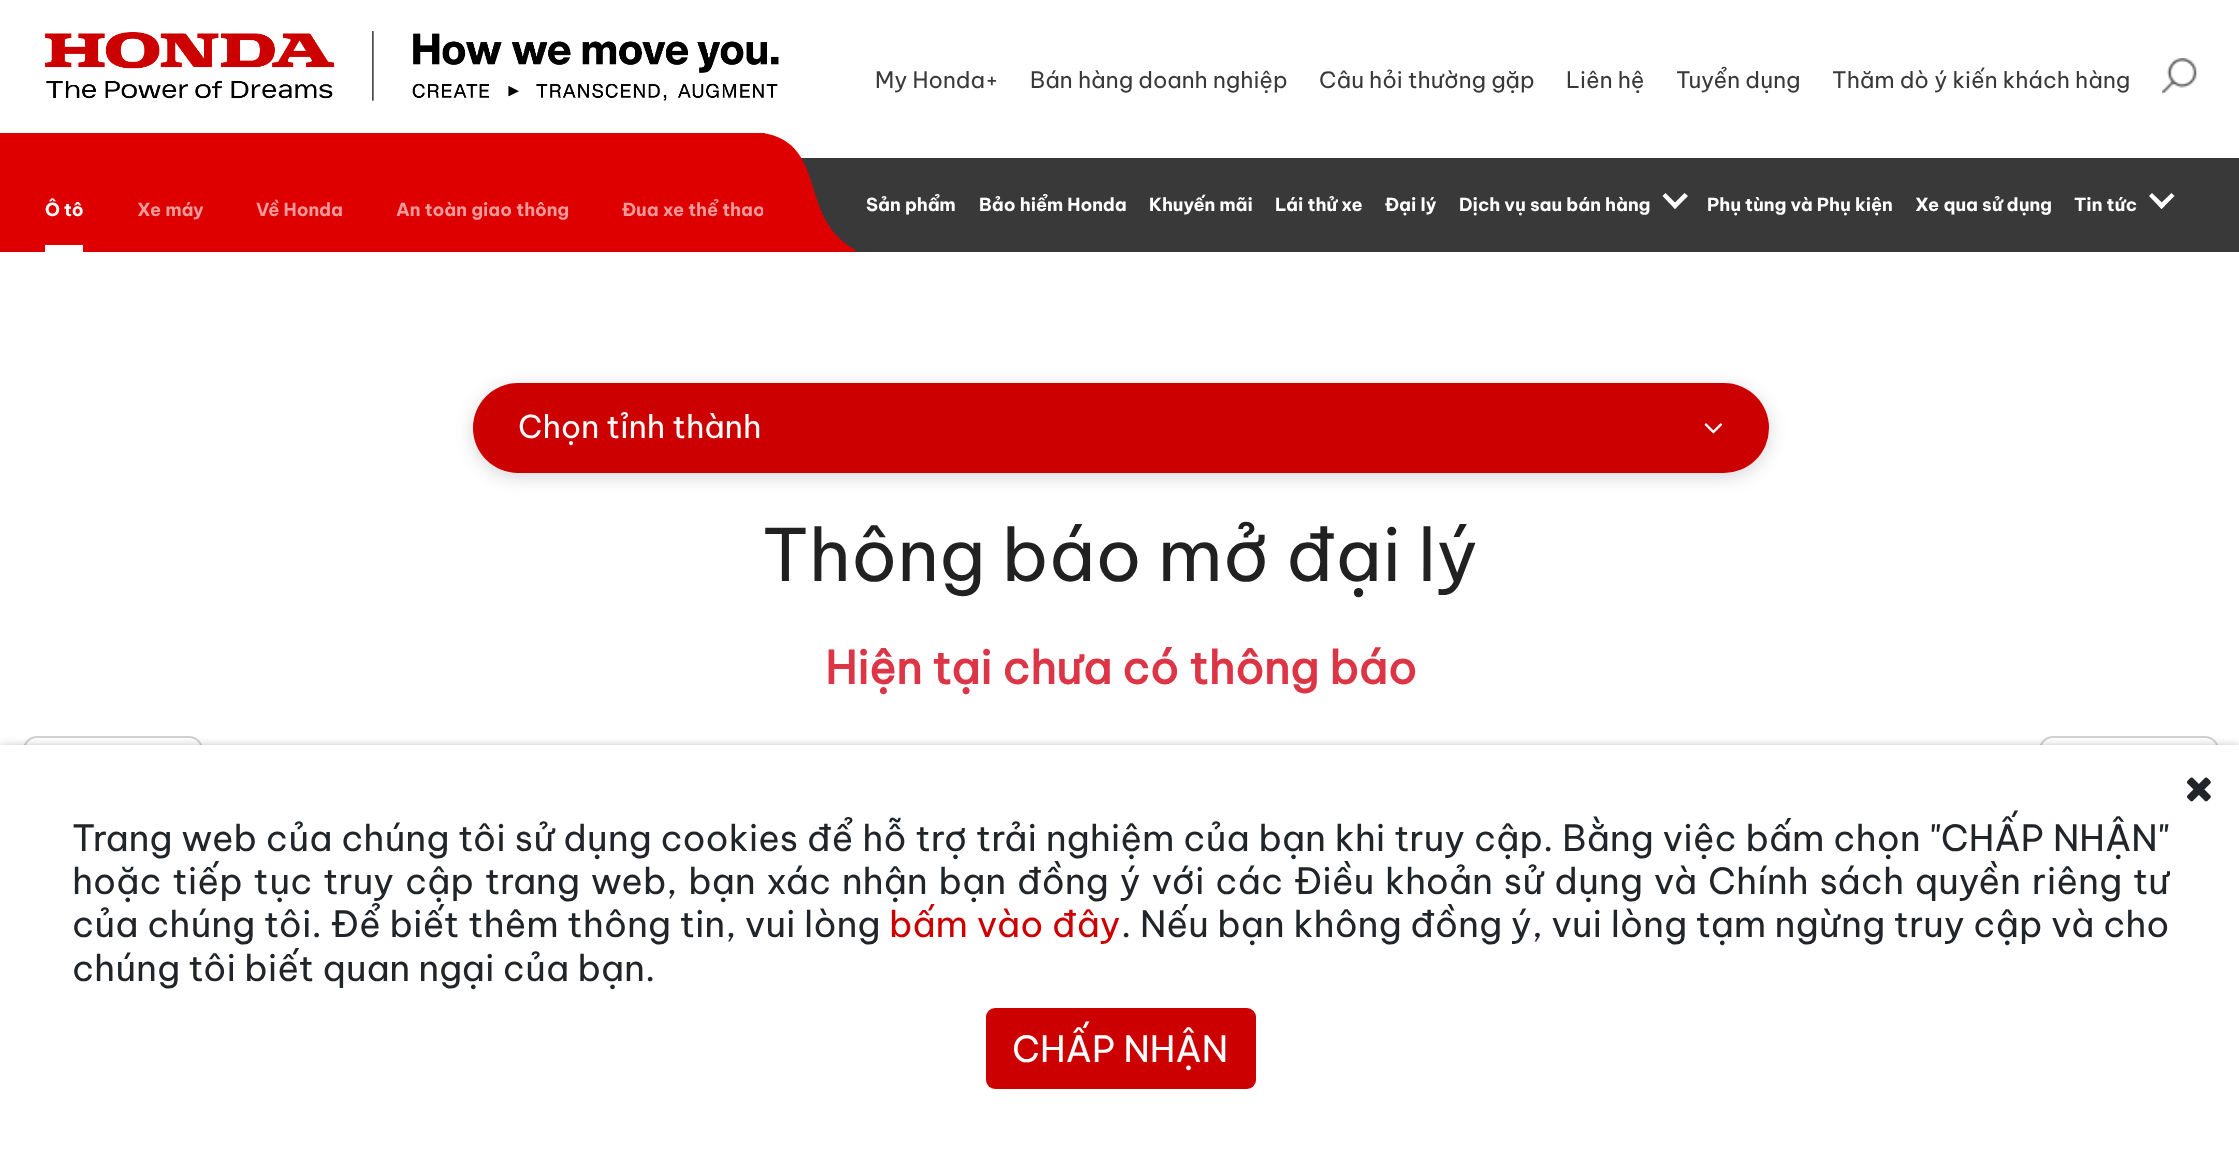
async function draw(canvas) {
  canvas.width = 2239;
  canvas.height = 1159;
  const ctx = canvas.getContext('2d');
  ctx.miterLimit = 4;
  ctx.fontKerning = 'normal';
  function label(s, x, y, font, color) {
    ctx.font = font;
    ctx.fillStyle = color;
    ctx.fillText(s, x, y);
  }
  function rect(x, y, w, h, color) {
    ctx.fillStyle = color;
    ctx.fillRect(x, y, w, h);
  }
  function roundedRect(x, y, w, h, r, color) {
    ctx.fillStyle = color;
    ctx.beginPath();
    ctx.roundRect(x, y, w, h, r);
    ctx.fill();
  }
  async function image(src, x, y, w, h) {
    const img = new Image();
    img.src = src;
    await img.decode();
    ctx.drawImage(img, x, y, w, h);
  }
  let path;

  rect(0, 0, 2239, 1159, '#fff');
  await image('assets/img1.png', 45, 31, 734, 70);
  label('My Honda+', 875, 88, '22.5px Be Vietnam Pro', '#393939');
  label('Bán hàng doanh nghiệp', 1030, 88, '22.5px Be Vietnam Pro', '#393939');
  label('Câu hỏi thường gặp', 1319, 88, '22.5px Be Vietnam Pro', '#393939');
  label('Liên hệ', 1566, 88, '22.5px Be Vietnam Pro', '#393939');
  label('Tuyển dụng', 1676, 88, '22.5px Be Vietnam Pro', '#393939');
  label('Thăm dò ý kiến khách hàng', 1832, 88, '22.5px Be Vietnam Pro', '#393939');
  await image('assets/img2.png', 2162, 58, 35, 37);
  rect(0, 133, 765, 119, '#de0000');
  rect(801, 158, 1438, 94, '#393939');
  label('Ô tô', 45, 216, 'bold 18px "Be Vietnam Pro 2"', '#fff');
  rect(45, 245, 38, 7, '#fff');
  label('Xe máy', 137, 216, 'bold 18px "Be Vietnam Pro 2"', '#f29999');
  label('Về Honda', 256, 216, 'bold 18px "Be Vietnam Pro 2"', '#f29999');
  label('An toàn giao thông', 396, 216, 'bold 18px "Be Vietnam Pro 2"', '#f29999');
  label('Đua xe thể thao', 622, 216, 'bold 18px "Be Vietnam Pro 2"', '#f29999');
  ctx.fillStyle = '#de0000';
  path = new Path2D('M763 133V252H860C796 223 830 144 763 133Z');
  ctx.fill(path);
  rect(855, 249, 5, 3, '#393939');
  label('Sản phẩm', 866, 211, 'bold 18px "Be Vietnam Pro 2"', '#fff');
  label('Bảo hiểm Honda', 979, 211, 'bold 18px "Be Vietnam Pro 2"', '#fff');
  label('Khuyến mãi', 1149, 211, 'bold 18px "Be Vietnam Pro 2"', '#fff');
  label('Lái thử xe', 1275, 211, 'bold 18px "Be Vietnam Pro 2"', '#fff');
  label('Đại lý', 1385, 211, 'bold 18px "Be Vietnam Pro 2"', '#fff');
  label('Dịch vụ sau bán hàng', 1459, 211, 'bold 18px "Be Vietnam Pro 2"', '#fff');
  path = new Path2D('M1684.5 193L1688 196L1675 209L1672 205.5Z');
  ctx.fill(path);
  path = new Path2D('M1665.5 193L1678 205.5L1675 209L1662.5 196Z');
  ctx.fill(path);
  label('Phụ tùng và Phụ kiện', 1707, 211, 'bold 18px "Be Vietnam Pro 2"', '#fff');
  label('Xe qua sử dụng', 1915, 211, 'bold 18px "Be Vietnam Pro 2"', '#fff');
  label('Tin tức', 2074, 211, 'bold 18px "Be Vietnam Pro 2"', '#fff');
  path = new Path2D('M2171.5 193L2174.5 196L2161.5 209L2158.5 205.5Z');
  ctx.fill(path);
  path = new Path2D('M2152 193L2165 205.5L2161.5 209L2149 196Z');
  ctx.fill(path);
  ctx.fillStyle = '#00000029';
  ctx.filter = 'blur(9px)';
  ctx.beginPath();
  ctx.roundRect(473, 387, 1296, 90, 45);
  ctx.fill();
  ctx.filter = 'none';
  roundedRect(473, 383, 1296, 90, 45, '#c00');
  label('Chọn tỉnh thành', 518, 438, '31.5px Be Vietnam Pro', '#fff');
  await image('assets/img3.png', 1704, 423, 19, 11);
  label('Thông báo mở đại lý', 762, 581, '72px Be Vietnam Pro', '#212121');
  label('Hiện tại chưa có thông báo', 825, 684, 'bold 45px Be Vietnam Pro', '#dc3545');
  ctx.beginPath();
  ctx.roundRect(24, 737, 178, 88, 13);
  ctx.strokeStyle = '#d2d2d2';
  ctx.lineWidth = 2;
  ctx.stroke();
  ctx.beginPath();
  ctx.roundRect(2040, 737, 178, 88, 13);
  ctx.stroke();
  ctx.fillStyle = '#000000cc';
  ctx.filter = 'blur(7px)';
  ctx.beginPath();
  ctx.rect(0, 752, 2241, 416);
  ctx.fill();
  ctx.filter = 'none';
  rect(0, 745, 2239, 414, '#fff');
  await image('assets/img4.png', 2187, 777, 24, 25);
  ctx.wordSpacing = '0.6px';
  label('Trang web của chúng tôi sử dụng cookies để hỗ trợ trải nghiệm của bạn khi truy cập. Bằng việc bấm chọn "CHẤP', 72, 851, '36px Be Vietnam Pro', '#212529');
  ctx.wordSpacing = '0px';
  label('NHẬN"', 2053, 851, '36px Be Vietnam Pro', '#212529');
  ctx.wordSpacing = '2.6px';
  label('hoặc tiếp tục truy cập trang web, bạn xác nhận bạn đồng ý với các Điều khoản sử dụng và Chính sách quyền', 72, 894, '36px Be Vietnam Pro', '#212529');
  label('riêng tư', 2032, 894, '36px Be Vietnam Pro', '#212529');
  ctx.wordSpacing = '0.4px';
  label('của chúng tôi. Để biết thêm thông tin, vui lòng', 72, 937, '36px Be Vietnam Pro', '#212529');
  label('bấm vào', 889, 937, '36px Be Vietnam Pro', '#c00');
  ctx.wordSpacing = '0px';
  label('đây', 1052, 937, '36px Be Vietnam Pro', '#c00');
  ctx.wordSpacing = '0.4px';
  label('. Nếu bạn không đồng ý, vui lòng tạm ngừng truy cập và cho', 1121, 937, '36px Be Vietnam Pro', '#212529');
  ctx.wordSpacing = '0px';
  label('chúng tôi biết quan ngại của bạn.', 72, 981, '36px Be Vietnam Pro', '#212529');
  roundedRect(986, 1008, 270, 81, 9, '#c00');
  label('CHẤP NHẬN', 1012, 1062, '36px Be Vietnam Pro', '#fff');
}

draw(document.querySelector('canvas'));
